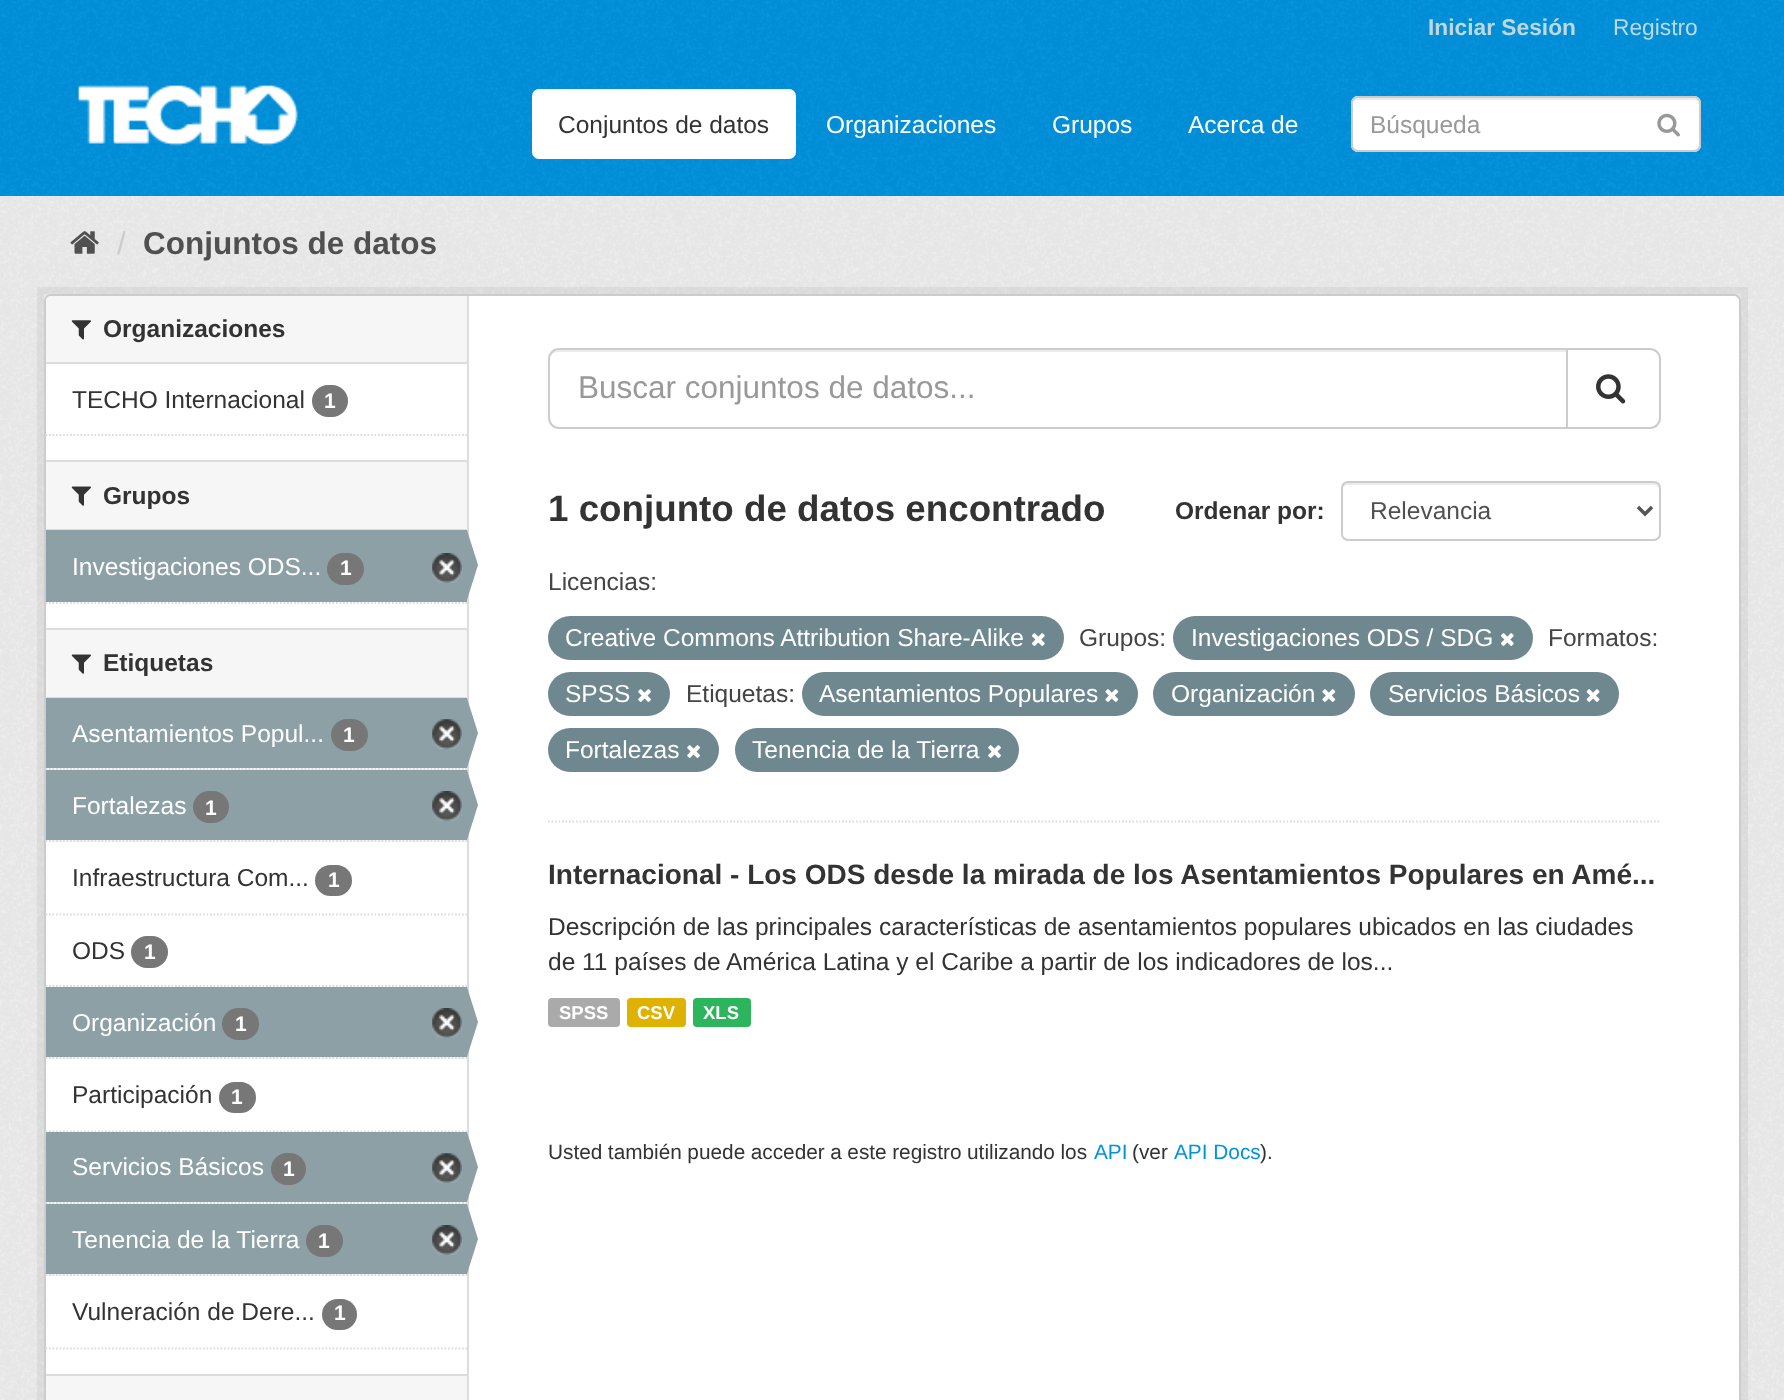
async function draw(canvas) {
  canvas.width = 1784;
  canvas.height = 1400;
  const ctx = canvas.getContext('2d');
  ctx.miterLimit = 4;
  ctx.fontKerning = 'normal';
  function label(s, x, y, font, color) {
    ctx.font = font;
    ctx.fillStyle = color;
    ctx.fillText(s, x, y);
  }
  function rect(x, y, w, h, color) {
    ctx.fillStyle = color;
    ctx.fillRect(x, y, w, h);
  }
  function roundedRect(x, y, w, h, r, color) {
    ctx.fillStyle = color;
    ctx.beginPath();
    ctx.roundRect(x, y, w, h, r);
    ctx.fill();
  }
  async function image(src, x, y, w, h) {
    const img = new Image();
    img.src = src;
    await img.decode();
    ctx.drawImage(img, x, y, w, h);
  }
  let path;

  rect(0, 0, 1784, 1400, '#0092dd');
  await image('assets/img1.png', 0, 0, 1784, 54);
  rect(1409, 0, 2, 54, '#0092dd');
  label('Iniciar Sesión', 1428, 35, 'bold 22.75px Liberation Sans', '#bfd7de');
  rect(1594, 0, 2, 54, '#0092dd');
  label('Registro', 1613, 35, '22.75px Liberation Sans', '#bfd7de');
  await image('assets/img2.png', 0, 54, 1784, 142);
  await image('assets/img3.png', 78, 85, 220, 61);
  roundedRect(532, 89, 264, 70, 7, '#fff');
  label('Conjuntos de datos', 558, 133, '24.5px Liberation Sans', '#333');
  label('Organizaciones', 826, 133, '24.5px Liberation Sans', '#fff');
  label('Grupos', 1052, 133, '24.5px Liberation Sans', '#fff');
  label('Acerca de', 1188, 133, '24.5px Liberation Sans', '#fff');
  roundedRect(1351, 96, 350, 56, 7, '#fff');
  ctx.fillStyle = '#ececec';
  path = new Path2D('M1358 100H1694C1697 100 1699 102 1699 105C1699 102 1698 98 1694 98H1358C1354 98 1353 102 1353 105C1353 102 1355 100 1358 100Z');
  ctx.fill(path);
  ctx.beginPath();
  ctx.roundRect(1352, 97, 348, 54, 6);
  ctx.strokeStyle = '#ccc';
  ctx.lineWidth = 2;
  ctx.stroke();
  label('Búsqueda', 1370, 133, '24.5px Liberation Sans', '#999');
  await image('assets/img4.png', 1657, 113, 23, 24);
  rect(0, 196, 1784, 1204, '#eee');
  await image('assets/img5.png', 0, 196, 1784, 1204);
  await image('assets/img6.png', 70, 231, 29, 23);
  label('/', 117, 254, '31.5px Liberation Sans', '#ccc');
  label('Conjuntos de datos', 143, 254, 'bold 31.5px Liberation Sans', '#505050');
  ctx.strokeStyle = '#0000000d';
  ctx.lineWidth = 7;
  ctx.strokeRect(40.5, 290.5, 1704, 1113);
  ctx.fillStyle = '#fff';
  ctx.beginPath();
  ctx.roundRect(45, 295, 1695, 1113, 6);
  ctx.fill();
  ctx.strokeStyle = '#ccc';
  ctx.lineWidth = 2;
  ctx.stroke();
  ctx.fillStyle = '#f6f6f6';
  ctx.beginPath();
  ctx.roundRect(46, 296, 421, 68, [5, 0, 0, 0]);
  ctx.fill();
  rect(46, 362, 421, 2, '#ddd');
  await image('assets/img7.png', 71, 320, 20, 20);
  label('Organizaciones', 103, 337, 'bold 24.5px Liberation Sans', '#333');
  label('TECHO Internacional', 72, 408, '24.5px Liberation Sans', '#333');
  roundedRect(312, 385, 36, 32, 16, '#777');
  label('1', 324, 408, 'bold 21px Liberation Sans', '#fff');
  path = new Path2D('M45.5 435H467');
  ctx.strokeStyle = '#ddd';
  ctx.lineWidth = 1.8;
  ctx.setLineDash([1.75, 1.75]);
  ctx.stroke(path);
  rect(46, 462, 421, 67, '#f6f6f6');
  rect(46, 460, 421, 2, '#ddd');
  rect(46, 529, 421, 1, '#ddd');
  await image('assets/img8.png', 71, 486, 20, 20);
  label('Grupos', 103, 504, 'bold 24.5px Liberation Sans', '#333');
  rect(46, 530, 421, 72, '#8ca0a6');
  label('Investigaciones ODS...', 72, 575, '24.5px Liberation Sans', '#fff');
  roundedRect(327, 553, 37, 32, 16, '#777');
  label('1', 340, 575, 'bold 21px Liberation Sans', '#fff');
  await image('assets/img9.png', 432, 553, 30, 30);
  rect(467, 296, 2, 1104, '#ddd');
  ctx.fillStyle = '#8ca0a6';
  path = new Path2D('M467 600V530L478 565Z');
  ctx.fill(path);
  path = new Path2D('M45.5 603H467');
  ctx.stroke(path);
  rect(46, 630, 421, 67, '#f6f6f6');
  rect(46, 628, 421, 2, '#ddd');
  rect(46, 697, 421, 1, '#ddd');
  await image('assets/img8.png', 71, 654, 20, 20);
  label('Etiquetas', 103, 671, 'bold 24.5px Liberation Sans', '#333');
  rect(46, 768, 421, 2, '#f6f6f6');
  path = new Path2D('M45.5 769H467');
  ctx.stroke(path);
  rect(46, 698, 421, 70, '#8ca0a6');
  label('Asentamientos Popul...', 72, 742, '24.5px Liberation Sans', '#fff');
  roundedRect(331, 719, 37, 32, 16, '#777');
  label('1', 343, 742, 'bold 21px Liberation Sans', '#fff');
  await image('assets/img10.png', 432, 719, 30, 30);
  ctx.fillStyle = '#8ca0a6';
  path = new Path2D('M467 768V698L478 733Z');
  ctx.fill(path);
  rect(46, 840, 421, 2, '#f6f6f6');
  path = new Path2D('M45.5 841H467');
  ctx.stroke(path);
  rect(46, 770, 421, 70, '#8ca0a6');
  label('Fortalezas', 72, 814, '24.5px Liberation Sans', '#fff');
  roundedRect(193, 791, 36, 32, 16, '#777');
  label('1', 205, 815, 'bold 21px Liberation Sans', '#fff');
  await image('assets/img9.png', 432, 791, 30, 30);
  ctx.fillStyle = '#8ca0a6';
  path = new Path2D('M467 840V770L478 805Z');
  ctx.fill(path);
  path = new Path2D('M45.5 914.5H467');
  ctx.stroke(path);
  label('Infraestructura Com...', 72, 886, '24.5px Liberation Sans', '#333');
  roundedRect(315, 865, 37, 31, 15.5, '#777');
  label('1', 328, 887, 'bold 21px Liberation Sans', '#fff');
  path = new Path2D('M45.5 986H467');
  ctx.stroke(path);
  label('ODS', 72, 959, '24.5px Liberation Sans', '#333');
  roundedRect(131, 936, 37, 32, 16, '#777');
  label('1', 144, 959, 'bold 21px Liberation Sans', '#fff');
  rect(46, 1057, 421, 2, '#f6f6f6');
  path = new Path2D('M45.5 1058H467');
  ctx.stroke(path);
  rect(46, 987, 421, 70, '#8ca0a6');
  label('Organización', 72, 1031, '24.5px Liberation Sans', '#fff');
  roundedRect(222, 1008, 37, 32, 16, '#777');
  label('1', 235, 1031, 'bold 21px Liberation Sans', '#fff');
  await image('assets/img9.png', 432, 1008, 30, 30);
  ctx.fillStyle = '#8ca0a6';
  path = new Path2D('M467 1057V987L478 1022Z');
  ctx.fill(path);
  path = new Path2D('M45.5 1131.5H467');
  ctx.stroke(path);
  label('Participación', 72, 1103, '24.5px Liberation Sans', '#333');
  roundedRect(219, 1082, 37, 31, 15.5, '#777');
  label('1', 231, 1104, 'bold 21px Liberation Sans', '#fff');
  rect(46, 1202, 421, 2, '#f6f6f6');
  path = new Path2D('M45.5 1203H467');
  ctx.stroke(path);
  rect(46, 1132, 421, 70, '#8ca0a6');
  label('Servicios Básicos', 72, 1175, '24.5px Liberation Sans', '#fff');
  roundedRect(271, 1153, 35, 32, 16, '#777');
  label('1', 283, 1176, 'bold 21px Liberation Sans', '#fff');
  await image('assets/img10.png', 432, 1153, 30, 30);
  ctx.fillStyle = '#8ca0a6';
  path = new Path2D('M467 1202V1132L478 1167Z');
  ctx.fill(path);
  rect(46, 1274, 421, 2, '#f6f6f6');
  path = new Path2D('M45.5 1275H467');
  ctx.stroke(path);
  rect(46, 1204, 421, 70, '#8ca0a6');
  label('Tenencia de la Tierra', 72, 1248, '24.5px Liberation Sans', '#fff');
  roundedRect(306, 1225, 37, 32, 16, '#777');
  label('1', 318, 1248, 'bold 21px Liberation Sans', '#fff');
  await image('assets/img9.png', 432, 1225, 30, 30);
  ctx.fillStyle = '#8ca0a6';
  path = new Path2D('M467 1274V1204L478 1239Z');
  ctx.fill(path);
  label('Vulneración de Dere...', 72, 1320, '24.5px Liberation Sans', '#333');
  roundedRect(322, 1299, 35, 31, 15.5, '#777');
  label('1', 334, 1320, 'bold 21px Liberation Sans', '#fff');
  path = new Path2D('M45.5 1348.5H467');
  ctx.stroke(path);
  rect(46, 1376, 421, 24, '#f6f6f6');
  rect(46, 1374, 421, 2, '#ddd');
  path = new Path2D('M548 821.5H1661');
  ctx.stroke(path);
  ctx.fillStyle = '#ececec';
  path = new Path2D('M558 352H1566V350H559C553 350 550 355 550 360C550 356 553 352 558 352Z');
  ctx.fill(path);
  ctx.beginPath();
  ctx.roundRect(549, 349, 1018, 79, [10, 0, 0, 10]);
  ctx.strokeStyle = '#ccc';
  ctx.lineWidth = 2;
  ctx.setLineDash([]);
  ctx.stroke();
  label('Buscar conjuntos de datos...', 578, 398, '31.5px Liberation Sans', '#999');
  ctx.fillStyle = '#fff';
  ctx.beginPath();
  ctx.roundRect(1567, 349, 93, 79, [0, 10, 10, 0]);
  ctx.fill();
  ctx.stroke();
  await image('assets/img11.png', 1596, 374, 30, 30);
  label('1 conjunto de datos encontrado', 548, 521, 'bold 36.75px Liberation Sans', '#333');
  label('Ordenar por:', 1175, 519, 'bold 24.5px Liberation Sans', '#333');
  ctx.fillStyle = '#ececec';
  path = new Path2D('M1348 485H1654C1657 485 1659 487 1659 490V488C1659 485 1657 483 1654 483H1347C1344 483 1342 485 1342 488V490C1342 487 1345 485 1348 485Z');
  ctx.fill(path);
  ctx.beginPath();
  ctx.roundRect(1342, 482, 318, 58, 6);
  ctx.stroke();
  path = new Path2D('M1638 507L1645 514L1652 507');
  ctx.strokeStyle = '#555';
  ctx.lineWidth = 3.5;
  ctx.stroke(path);
  label('Relevancia', 1370, 519, '24.5px Liberation Sans', '#505050');
  label('Licencias:', 548, 590, '24.5px Liberation Sans', '#444');
  roundedRect(548, 616, 516, 44, 22, '#6f8890');
  label('Creative Commons Attribution Share-Alike', 565, 646, '24.5px Liberation Sans', '#fff');
  await image('assets/img12.png', 1032, 633, 13, 13);
  label('Grupos:', 1079, 646, '24.5px Liberation Sans', '#444');
  roundedRect(1173, 616, 360, 44, 22, '#6f8890');
  label('Investigaciones ODS / SDG', 1191, 646, '24.5px Liberation Sans', '#fff');
  await image('assets/img12.png', 1501, 633, 13, 13);
  label('Formatos:', 1548, 646, '24.5px Liberation Sans', '#444');
  roundedRect(548, 672, 122, 44, 22, '#6f8890');
  label('SPSS', 565, 702, '24.5px Liberation Sans', '#fff');
  await image('assets/img13.png', 638, 689, 13, 13);
  label('Etiquetas:', 686, 702, '24.5px Liberation Sans', '#444');
  roundedRect(802, 672, 336, 44, 22, '#6f8890');
  label('Asentamientos Populares', 819, 702, '24.5px Liberation Sans', '#fff');
  await image('assets/img14.png', 1105, 689, 14, 13);
  roundedRect(1153, 672, 202, 44, 22, '#6f8890');
  label('Organización', 1171, 702, '24.5px Liberation Sans', '#fff');
  await image('assets/img14.png', 1322, 689, 14, 13);
  roundedRect(1370, 672, 249, 44, 22, '#6f8890');
  label('Servicios Básicos', 1388, 702, '24.5px Liberation Sans', '#fff');
  await image('assets/img15.png', 1586, 689, 14, 13);
  roundedRect(548, 728, 171, 44, 22, '#6f8890');
  label('Fortalezas', 565, 758, '24.5px Liberation Sans', '#fff');
  await image('assets/img13.png', 687, 745, 13, 13);
  roundedRect(735, 728, 284, 44, 22, '#6f8890');
  label('Tenencia de la Tierra', 752, 758, '24.5px Liberation Sans', '#fff');
  await image('assets/img16.png', 988, 745, 13, 13);
  label('Internacional - Los ODS desde la mirada de los Asentamientos Populares en Amé...', 548, 884, 'bold 28px Liberation Sans', '#333');
  label('Descripción de las principales características de asentamientos populares ubicados en las ciudades', 548, 935, '24.5px Liberation Sans', '#333');
  label('de 11 países de América Latina y el Caribe a partir de los indicadores de los...', 548, 970, '24.5px Liberation Sans', '#333');
  roundedRect(548, 998, 72, 29, 4, '#aaa');
  label('SPSS', 559, 1019, 'bold 18.5px Liberation Sans', '#fff');
  roundedRect(627, 998, 59, 29, 4, '#dfb100');
  label('CSV', 637, 1019, 'bold 18.5px Liberation Sans', '#fff');
  roundedRect(693, 998, 58, 29, 4, '#2db55d');
  label('XLS', 703, 1019, 'bold 18.5px Liberation Sans', '#fff');
  ctx.wordSpacing = '-0.25px';
  label('Usted también puede acceder a este registro utilizando los', 548, 1159, '20.8px Liberation Sans', '#333');
  ctx.wordSpacing = '0px';
  label('API', 1094, 1159, '20.8px Liberation Sans', '#0092dd');
  label('(ver', 1132, 1159, '20.8px Liberation Sans', '#333');
  label('API Docs', 1174, 1159, '20.8px Liberation Sans', '#0092dd');
  label(').', 1260, 1159, '20.8px Liberation Sans', '#333');
}

draw(document.querySelector('canvas'));
